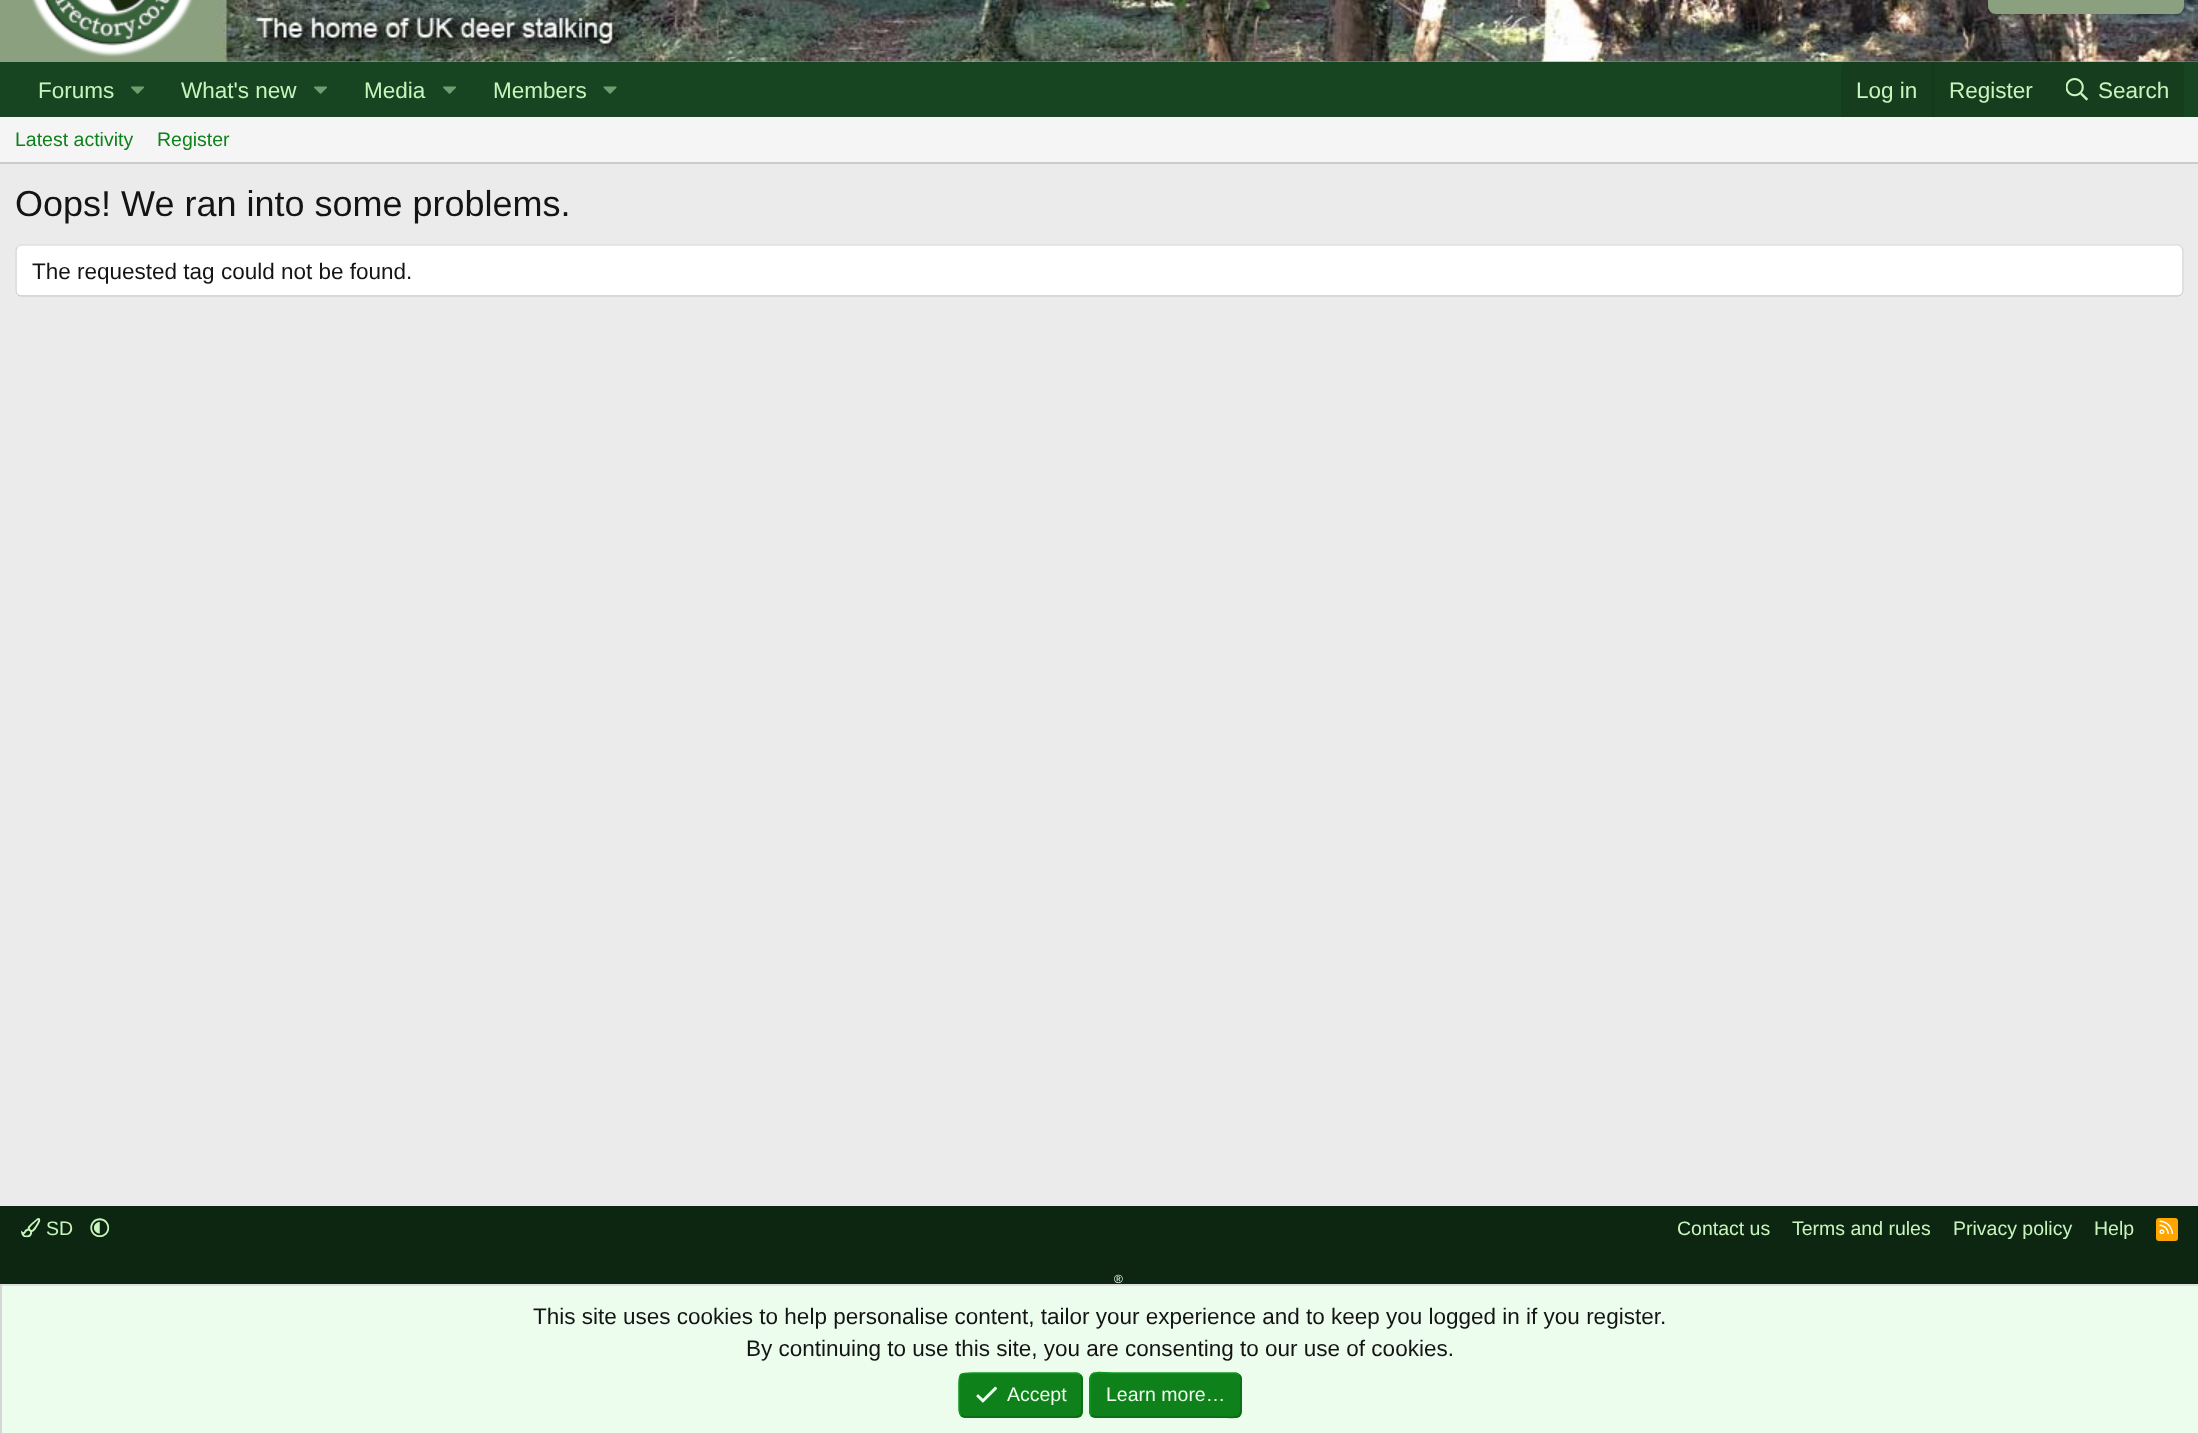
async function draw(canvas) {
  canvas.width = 2198;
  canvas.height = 1433;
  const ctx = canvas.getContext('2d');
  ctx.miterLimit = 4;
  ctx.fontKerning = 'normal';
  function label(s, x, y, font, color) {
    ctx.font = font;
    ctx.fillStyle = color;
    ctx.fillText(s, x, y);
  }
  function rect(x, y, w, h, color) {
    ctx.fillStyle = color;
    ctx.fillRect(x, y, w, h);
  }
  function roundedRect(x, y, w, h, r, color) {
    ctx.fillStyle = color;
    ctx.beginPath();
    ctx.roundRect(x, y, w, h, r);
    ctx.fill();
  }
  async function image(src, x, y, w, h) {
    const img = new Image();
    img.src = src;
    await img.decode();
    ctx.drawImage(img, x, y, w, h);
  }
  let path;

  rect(0, 0, 2198, 1433, '#ebebeb');
  rect(0, 0, 2198, 62, '#8ba07f');
  await image('assets/img1.png', 216, 0, 1982, 62);
  await image('assets/img2.png', 31, 0, 162, 57);
  roundedRect(1988, -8, 196, 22, 8, '#8aa07e');
  rect(0, 62, 2198, 55, '#174421');
  label('Forums', 38, 98, '22.5px Liberation Sans', '#c8f5bc');
  await image('assets/img3.png', 131, 86, 13, 8);
  label('What\'s new', 181, 98, '22.5px Liberation Sans', '#c8f5bc');
  await image('assets/img3.png', 314, 86, 13, 8);
  label('Media', 364, 98, '22.5px Liberation Sans', '#c8f5bc');
  await image('assets/img3.png', 443, 86, 13, 8);
  label('Members', 493, 98, '22.5px Liberation Sans', '#c8f5bc');
  await image('assets/img4.png', 603, 86, 14, 8);
  ctx.fillStyle = '#173d1f';
  ctx.beginPath();
  ctx.roundRect(1841, 62, 207, 55, [6, 6, 0, 0]);
  ctx.fill();
  label('Log in', 1856, 98, '22.5px Liberation Sans', '#c8f5bc');
  rect(1932, 62, 2, 55, '#17371d');
  label('Register', 1949, 98, '22.5px Liberation Sans', '#c8f5bc');
  ctx.fillStyle = '#173d1f';
  ctx.beginPath();
  ctx.roundRect(2048, 62, 136, 55, [6, 6, 0, 0]);
  ctx.fill();
  await image('assets/img5.png', 2066, 78, 22, 23);
  label('Search', 2098, 98, '22.5px Liberation Sans', '#c8f5bc');
  rect(0, 117, 2198, 45, '#f5f5f5');
  rect(0, 162, 2198, 2, '#ccc');
  label('Latest activity', 15, 146, '19.5px Liberation Sans', '#0e811b');
  label('Register', 157, 146, '19.5px Liberation Sans', '#0e811b');
  label('Oops! We ran into some problems.', 15, 216, '36px Liberation Sans', '#141414');
  roundedRect(15, 245, 2169, 52, 6, '#fff');
  path = new Path2D('M17.5 247C18.5 246 19.5 245 21 245H2178C2179.5 245 2180.5 246 2181.5 247');
  ctx.strokeStyle = '#e0e0e0';
  ctx.lineWidth = 1.5;
  ctx.stroke(path);
  path = new Path2D('M2181.5 247C2182.5 248 2183 249 2183 250.5V291C2183 292.5 2182.5 293.5 2181.5 294.5');
  ctx.strokeStyle = '#d6d6d6';
  ctx.stroke(path);
  path = new Path2D('M2181.5 294.5C2180.5 295.5 2179.5 296 2178 296H21C19.5 296 18.5 295.5 17.5 294.5');
  ctx.strokeStyle = '#ccc';
  ctx.stroke(path);
  path = new Path2D('M17.5 294.5C16.5 293.5 16 292.5 16 291V250.5C16 249 16.5 248 17.5 247');
  ctx.strokeStyle = '#d6d6d6';
  ctx.stroke(path);
  label('The requested tag could not be found.', 32, 279, '22.5px Liberation Sans', '#141414');
  rect(0, 1206, 2198, 78, '#0d2612');
  await image('assets/img6.png', 21, 1218, 20, 20);
  label('SD', 46, 1235, '19.5px Liberation Sans', '#c8f5bc');
  await image('assets/img7.png', 90, 1218, 20, 20);
  label('Contact us', 1677, 1235, '19.5px Liberation Sans', '#c8f5bc');
  label('Terms and rules', 1792, 1235, '19.5px Liberation Sans', '#c8f5bc');
  label('Privacy policy', 1953, 1235, '19.5px Liberation Sans', '#c8f5bc');
  label('Help', 2094, 1235, '19.5px Liberation Sans', '#c8f5bc');
  roundedRect(2156, 1218, 22, 23, 3, '#ffa500');
  await image('assets/img8.png', 2159, 1220, 15, 14);
  label('®', 1114, 1283, '12px Liberation Sans', '#edfded');
  rect(2, 1286, 2196, 147, '#edfded');
  rect(0, 1284, 2198, 2, '#e0e0e0');
  rect(0, 1284, 2, 149, '#d6d6d6');
  label('This site uses cookies to help personalise content, tailor your experience and to keep you logged in if you register.', 533, 1324, '22.5px Liberation Sans', '#141414');
  label('By continuing to use this site, you are consenting to our use of cookies.', 746, 1356, '22.5px Liberation Sans', '#141414');
  roundedRect(959, 1373, 124, 45, 6, '#0e811b');
  path = new Path2D('M1080.5 1375C1083 1377 1082 1381 1082 1384V1395C1082 1420.5 1085.5 1417 1058 1417H964.5C963 1416.5 962 1416 961 1415');
  ctx.strokeStyle = '#0b6a16';
  ctx.stroke(path);
  path = new Path2D('M961 1415C958.5 1413 959 1409 959 1406V1395C959 1369.5 956 1373 983 1373H1077C1078.5 1373.5 1079.5 1374 1080.5 1375');
  ctx.strokeStyle = '#109820';
  ctx.stroke(path);
  await image('assets/img9.png', 976, 1386, 22, 17);
  label('Accept', 1007, 1401, '19.5px Liberation Sans', '#edfded');
  roundedRect(1089, 1373, 153, 45, 6, '#0e811b');
  path = new Path2D('M1239.5 1375C1242 1377 1241 1381 1241 1384V1395C1241 1422.5 1244 1417 1212.5 1417H1095C1093.5 1416.5 1092.5 1416 1091.5 1415');
  ctx.strokeStyle = '#0b6a16';
  ctx.stroke(path);
  path = new Path2D('M1091.5 1415C1089 1413 1090 1409 1090 1406V1395C1090 1367.5 1087 1373 1118.5 1373H1236C1237.5 1373.5 1238.5 1374 1239.5 1375');
  ctx.strokeStyle = '#109820';
  ctx.stroke(path);
  label('Learn more…', 1106, 1401, '19.5px Liberation Sans', '#edfded');
}

draw(document.querySelector('canvas'));
